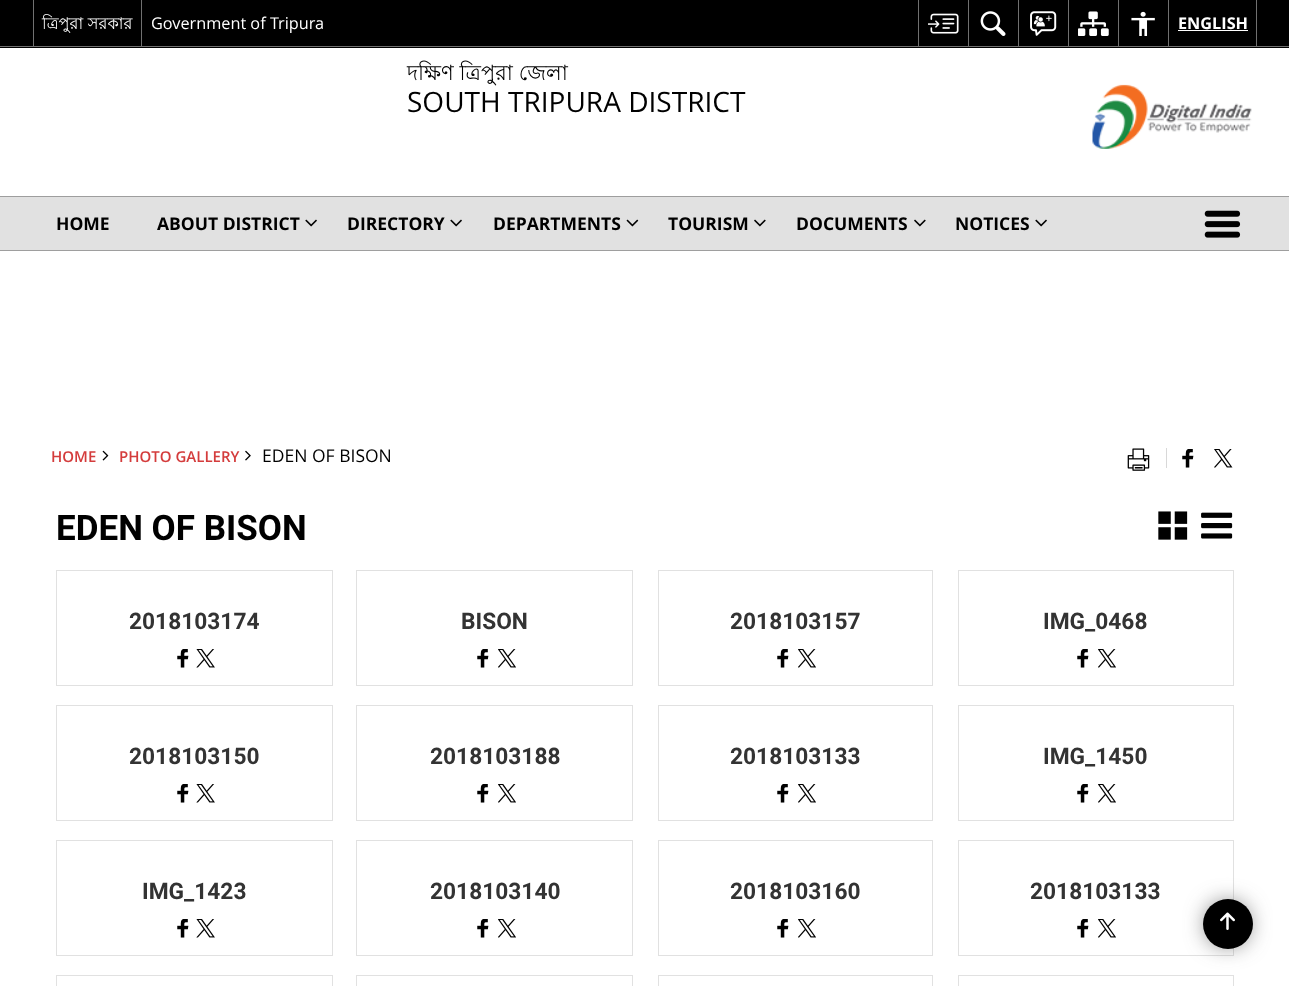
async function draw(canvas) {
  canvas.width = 1289;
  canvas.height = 986;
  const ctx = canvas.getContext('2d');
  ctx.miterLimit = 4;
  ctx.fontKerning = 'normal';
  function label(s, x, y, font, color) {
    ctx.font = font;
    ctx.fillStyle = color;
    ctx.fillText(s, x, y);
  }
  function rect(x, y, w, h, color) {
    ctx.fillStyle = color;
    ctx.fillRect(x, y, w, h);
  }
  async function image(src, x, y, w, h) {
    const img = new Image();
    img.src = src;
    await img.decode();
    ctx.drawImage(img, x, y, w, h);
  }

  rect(0, 0, 1289, 986, '#fff');
  rect(0, 0, 1289, 48, '#000');
  rect(0, 46, 1289, 1, '#707070');
  rect(33, 0, 1, 46, '#707070');
  label('ত্রিপুরা সরকার', 42, 29, '16.25px Lohit Bengali', '#fff');
  rect(141, 0, 1, 46, '#707070');
  label('Government of Tripura', 151, 29, '16.25px Open Sans', '#fff');
  rect(918, 0, 1, 46, '#707070');
  await image('assets/img1.png', 928, 13, 31, 21);
  rect(968, 0, 1, 46, '#707070');
  await image('assets/img2.png', 980, 11, 26, 25);
  rect(1018, 0, 1, 46, '#707070');
  await image('assets/img3.png', 1030, 11, 27, 25);
  rect(1068, 0, 1, 46, '#707070');
  await image('assets/img4.png', 1078, 11, 31, 25);
  rect(1118, 0, 1, 46, '#707070');
  await image('assets/img5.png', 1131, 11, 24, 25);
  rect(1256, 0, 1, 46, '#707070');
  rect(1168, 0, 1, 46, '#707070');
  label('ENGLISH', 1178, 29, 'bold 16.25px Open Sans', '#fff');
  rect(1178, 30, 70, 1, '#fff');
  label('দক্ষিণ ত্রিপুরা জেলা', 407, 80, '21px Lohit Bengali', '#000');
  label('SOUTH TRIPURA DISTRICT', 407, 112, '28px Open Sans', '#000');
  await image('assets/img6.png', 1092, 84, 160, 65);
  rect(0, 197, 1289, 53, '#e1e1e1');
  rect(0, 196, 1289, 1, '#9e9e9e');
  rect(0, 250, 1289, 1, '#9e9e9e');
  label('HOME', 56, 230, 'bold 17.5px Open Sans', '#000');
  label('ABOUT DISTRICT', 157, 230, 'bold 17.5px Open Sans', '#000');
  await image('assets/img7.png', 305, 219, 12, 8);
  label('DIRECTORY', 347, 230, 'bold 17.5px Open Sans', '#000');
  await image('assets/img7.png', 450, 219, 12, 8);
  label('DEPARTMENTS', 493, 230, 'bold 17.5px Open Sans', '#000');
  await image('assets/img8.png', 626, 219, 13, 8);
  label('TOURISM', 668, 230, 'bold 17.5px Open Sans', '#000');
  await image('assets/img9.png', 754, 219, 12, 8);
  label('DOCUMENTS', 796, 230, 'bold 17.5px Open Sans', '#000');
  await image('assets/img9.png', 914, 219, 12, 8);
  label('NOTICES', 955, 230, 'bold 17.5px Open Sans', '#000');
  await image('assets/img7.png', 1035, 219, 12, 8);
  await image('assets/img10.png', 1204, 210, 37, 28);
  label('HOME', 51, 462, '600 15px Open Sans', '#d43c3c');
  await image('assets/img11.png', 102, 450, 7, 11);
  label('PHOTO GALLERY', 119, 462, '600 15px Open Sans', '#d43c3c');
  await image('assets/img12.png', 245, 450, 6, 11);
  label('EDEN OF BISON', 262, 462, '17.5px Open Sans', '#000');
  await image('assets/img13.png', 1127, 448, 23, 23);
  rect(1166, 448, 1, 20, '#d8d8d8');
  await image('assets/img14.png', 1182, 449, 12, 19);
  await image('assets/img15.png', 1214, 449, 19, 19);
  label('EDEN OF BISON', 56, 540, 'bold 35px Roboto', '#000');
  await image('assets/img16.png', 1158, 511, 30, 29);
  await image('assets/img17.png', 1201, 512, 32, 27);
  ctx.strokeStyle = '#e1e1e1';
  ctx.strokeRect(56.5, 570.5, 276, 115);
  label('2018103174', 129, 629, 'bold 22.75px Roboto', '#333');
  await image('assets/img14.png', 177, 649, 12, 19);
  await image('assets/img18.png', 196, 649, 19, 19);
  ctx.strokeRect(356.5, 570.5, 276, 115);
  label('BISON', 461, 629, 'bold 22.75px Roboto', '#333');
  await image('assets/img14.png', 477, 649, 12, 19);
  await image('assets/img19.png', 498, 649, 18, 19);
  ctx.strokeRect(658.5, 570.5, 274, 115);
  label('2018103157', 730, 629, 'bold 22.75px Roboto', '#333');
  await image('assets/img14.png', 777, 649, 12, 19);
  await image('assets/img19.png', 798, 649, 18, 19);
  ctx.strokeRect(958.5, 570.5, 275, 115);
  label('IMG_0468', 1043, 629, 'bold 22.75px Roboto', '#333');
  await image('assets/img14.png', 1077, 649, 12, 19);
  await image('assets/img19.png', 1098, 649, 18, 19);
  ctx.strokeRect(56.5, 705.5, 276, 115);
  label('2018103150', 129, 764, 'bold 22.75px Roboto', '#333');
  await image('assets/img14.png', 177, 784, 12, 19);
  await image('assets/img18.png', 196, 784, 19, 19);
  ctx.strokeRect(356.5, 705.5, 276, 115);
  label('2018103188', 430, 764, 'bold 22.75px Roboto', '#333');
  await image('assets/img14.png', 477, 784, 12, 19);
  await image('assets/img19.png', 498, 784, 18, 19);
  ctx.strokeRect(658.5, 705.5, 274, 115);
  label('2018103133', 730, 764, 'bold 22.75px Roboto', '#333');
  await image('assets/img14.png', 777, 784, 12, 19);
  await image('assets/img19.png', 798, 784, 18, 19);
  ctx.strokeRect(958.5, 705.5, 275, 115);
  label('IMG_1450', 1043, 764, 'bold 22.75px Roboto', '#333');
  await image('assets/img14.png', 1077, 784, 12, 19);
  await image('assets/img19.png', 1098, 784, 18, 19);
  ctx.strokeRect(56.5, 840.5, 276, 115);
  label('IMG_1423', 142, 899, 'bold 22.75px Roboto', '#333');
  await image('assets/img14.png', 177, 919, 12, 19);
  await image('assets/img18.png', 196, 919, 19, 19);
  ctx.strokeRect(356.5, 840.5, 276, 115);
  label('2018103140', 430, 899, 'bold 22.75px Roboto', '#333');
  await image('assets/img14.png', 477, 919, 12, 19);
  await image('assets/img19.png', 498, 919, 18, 19);
  ctx.strokeRect(658.5, 840.5, 274, 115);
  label('2018103160', 730, 899, 'bold 22.75px Roboto', '#333');
  await image('assets/img14.png', 777, 919, 12, 19);
  await image('assets/img19.png', 798, 919, 18, 19);
  ctx.strokeRect(958.5, 840.5, 275, 115);
  label('2018103133', 1030, 899, 'bold 22.75px Roboto', '#333');
  await image('assets/img14.png', 1077, 919, 12, 19);
  await image('assets/img19.png', 1098, 919, 18, 19);
  ctx.strokeRect(56.5, 975.5, 276, 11);
  ctx.strokeRect(356.5, 975.5, 276, 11);
  ctx.strokeRect(658.5, 975.5, 274, 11);
  ctx.strokeRect(958.5, 975.5, 275, 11);
  ctx.fillStyle = '#3c3c3c';
  ctx.filter = 'blur(12px)';
  ctx.beginPath();
  ctx.roundRect(1209, 905, 37, 38, 18.5);
  ctx.fill();
  ctx.filter = 'none';
  ctx.fillStyle = '#000';
  ctx.beginPath();
  ctx.arc(1228, 924, 25, 0, 2 * Math.PI);
  ctx.fill();
  await image('assets/img20.png', 1220, 912, 15, 18);
}

draw(document.querySelector('canvas'));
